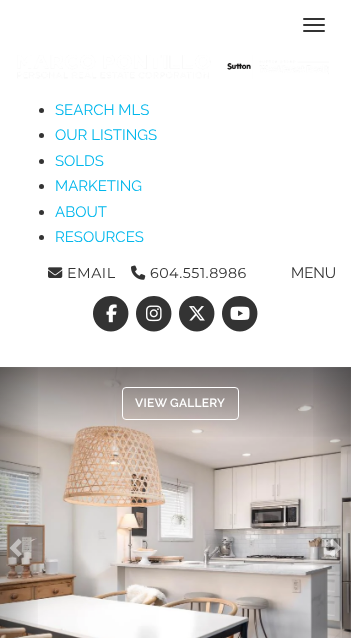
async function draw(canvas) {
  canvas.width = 351;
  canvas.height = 638;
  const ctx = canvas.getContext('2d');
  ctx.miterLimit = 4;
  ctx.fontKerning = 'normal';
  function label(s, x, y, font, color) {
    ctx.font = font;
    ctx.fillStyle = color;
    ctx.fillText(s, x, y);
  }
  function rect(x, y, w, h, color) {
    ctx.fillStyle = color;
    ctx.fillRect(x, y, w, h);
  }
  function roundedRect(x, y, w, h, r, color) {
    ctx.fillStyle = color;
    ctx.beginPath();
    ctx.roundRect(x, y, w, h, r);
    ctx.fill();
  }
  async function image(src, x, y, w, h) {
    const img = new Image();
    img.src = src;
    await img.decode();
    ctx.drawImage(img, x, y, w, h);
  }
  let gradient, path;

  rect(0, 0, 351, 638, '#fff');
  roundedRect(303, 18, 22, 2, 1, '#333');
  roundedRect(303, 24, 22, 2, 1, '#333');
  roundedRect(303, 30, 22, 2, 1, '#333');
  await image('assets/img1.png', 17, 55, 312, 24);
  ctx.beginPath();
  ctx.arc(41.5, 110.5, 2.5, 0, 2 * Math.PI);
  ctx.fill();
  label('SEARCH MLS', 55, 115, '15px Raleway', '#00b7ec');
  ctx.fillStyle = '#333';
  ctx.beginPath();
  ctx.arc(41.5, 135.5, 2.5, 0, 2 * Math.PI);
  ctx.fill();
  label('OUR LISTINGS', 55, 140, '15px Raleway', '#00b7ec');
  ctx.fillStyle = '#333';
  ctx.beginPath();
  ctx.arc(41.5, 161.5, 2.5, 0, 2 * Math.PI);
  ctx.fill();
  label('SOLDS', 55, 166, '15px Raleway', '#00b7ec');
  ctx.fillStyle = '#333';
  ctx.beginPath();
  ctx.arc(41.5, 186.5, 2.5, 0, 2 * Math.PI);
  ctx.fill();
  label('MARKETING', 55, 191, '15px Raleway', '#00b7ec');
  ctx.fillStyle = '#333';
  ctx.beginPath();
  ctx.arc(41.5, 212.5, 2.5, 0, 2 * Math.PI);
  ctx.fill();
  label('ABOUT', 55, 217, '15px Raleway', '#00b7ec');
  ctx.fillStyle = '#333';
  ctx.beginPath();
  ctx.arc(41.5, 237.5, 2.5, 0, 2 * Math.PI);
  ctx.fill();
  label('RESOURCES', 55, 242, '15px Raleway', '#00b7ec');
  label('MENU', 291, 278, '15px Raleway', '#333');
  await image('assets/img2.png', 48, 267, 15, 11);
  ctx.letterSpacing = '0.5px';
  label('EMAIL', 67, 278, '14.25px Montserrat', '#333');
  await image('assets/img3.png', 131, 265, 15, 15);
  label('604.551.8986', 150, 278, '14.25px Montserrat', '#333');
  path = new Path2D('M111 331.5C127.5 331 135 310 121.5 299.5C118.5 297 114.5 296 111 296C107 296 103 297 100 299.5C86.5 310 94 331 111 331.5Z');
  ctx.fill(path);
  await image('assets/img4.png', 106, 304, 11, 19);
  path = new Path2D('M154 331.5C170.5 331 178 310 164.5 299.5C161.5 297 157.5 296 154 296C150 296 146 297 143 299.5C129.5 310 137 331 154 331.5Z');
  ctx.fill(path);
  await image('assets/img5.png', 146, 305, 16, 17);
  path = new Path2D('M197 331.5C213.5 331 221 310 207.5 299.5C204.5 297 200.5 296 197 296C193 296 189 297 186 299.5C172.5 310 180 331 197 331.5Z');
  ctx.fill(path);
  await image('assets/img6.png', 189, 306, 16, 15);
  path = new Path2D('M240 331.5C256.5 331 264 310 250.5 299.5C247.5 297 243.5 296 240 296C236 296 232 297 229 299.5C215.5 310 223 331 240 331.5Z');
  ctx.fill(path);
  await image('assets/img7.png', 230, 306, 20, 14);
  await image('assets/img8.png', 0, 367, 351, 271);
  gradient = ctx.createLinearGradient(176, 367, 176, 440);
  gradient.addColorStop(0, '#00000073');
  gradient.addColorStop(1, '#00000000');
  ctx.fillStyle = gradient;
  ctx.fillRect(0, 367, 351, 70);
  gradient = ctx.createLinearGradient(0, 547, 42, 547);
  gradient.addColorStop(0, '#00000040');
  gradient.addColorStop(1, '#00000000');
  ctx.fillStyle = gradient;
  ctx.fillRect(0, 367, 38, 271);
  ctx.fillStyle = '#ffffff80';
  path = new Path2D('M22 542L16 548L22 554L18.5 557L9.5 548L18.5 538.5Z');
  ctx.fill(path);
  ctx.beginPath();
  ctx.roundRect(122.5, 387.5, 116, 32, 3.5);
  ctx.strokeStyle = '#fff';
  ctx.stroke();
  ctx.letterSpacing = '0.25px';
  label('VIEW GALLERY', 135, 407, '600 12px Raleway', '#fff');
  gradient = ctx.createLinearGradient(309, 547, 351, 547);
  gradient.addColorStop(0, '#00000000');
  gradient.addColorStop(1, '#00000040');
  ctx.fillStyle = gradient;
  ctx.fillRect(313, 367, 38, 271);
  ctx.fillStyle = '#ffffff80';
  path = new Path2D('M341.5 548L332.5 557L329 554L335 548L329 542L332.5 538.5Z');
  ctx.fill(path);
}

draw(document.querySelector('canvas'));
